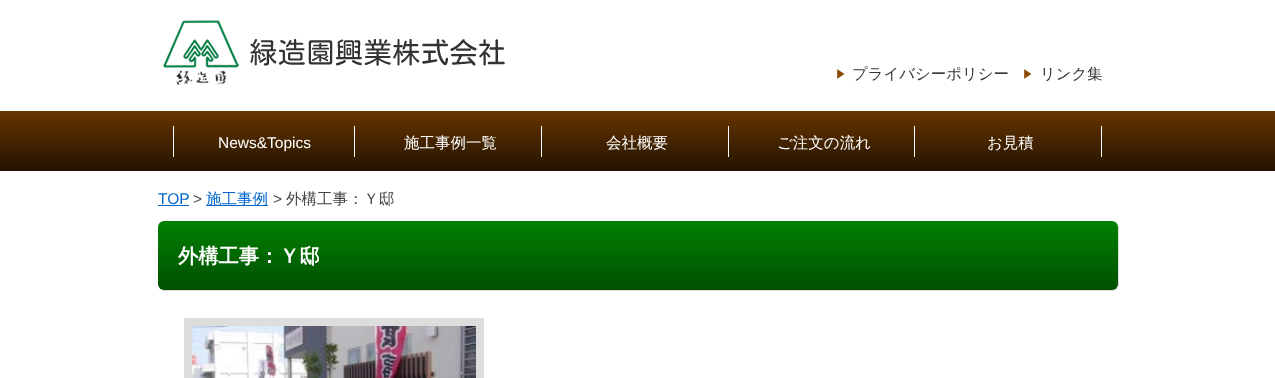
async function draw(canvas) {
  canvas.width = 1275;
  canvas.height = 378;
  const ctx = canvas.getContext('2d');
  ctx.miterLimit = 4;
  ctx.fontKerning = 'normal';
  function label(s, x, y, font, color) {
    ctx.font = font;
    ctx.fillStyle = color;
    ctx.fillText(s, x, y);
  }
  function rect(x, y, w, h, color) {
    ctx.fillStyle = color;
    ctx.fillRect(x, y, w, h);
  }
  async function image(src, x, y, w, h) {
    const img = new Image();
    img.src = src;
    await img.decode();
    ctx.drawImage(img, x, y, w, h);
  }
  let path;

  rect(0, 0, 1275, 378, '#fff');
  await image('assets/img1.png', 163, 20, 342, 65);
  await image('assets/img2.png', 837, 69, 8, 10);
  label('プライバシーポリシー', 852, 79, '500 15.4px WenQuanYi Zen Hei', '#333');
  await image('assets/img2.png', 1024, 69, 8, 10);
  label('リンク集', 1040, 79, '500 15.4px WenQuanYi Zen Hei', '#333');
  await image('assets/img3.png', 0, 111, 1275, 60);
  rect(354, 126, 1, 31, '#fff');
  rect(173, 126, 1, 31, '#fff');
  label('News&Topics', 218, 148, '15.5px Liberation Sans', '#fff');
  rect(541, 126, 1, 31, '#fff');
  label('施工事例一覧', 404, 148, '500 15.5px WenQuanYi Zen Hei', '#fff');
  rect(728, 126, 1, 31, '#fff');
  label('会社概要', 606, 148, '500 15.5px WenQuanYi Zen Hei', '#fff');
  rect(914, 126, 1, 31, '#fff');
  label('ご注文の流れ', 777, 148, '500 15.5px WenQuanYi Zen Hei', '#fff');
  rect(1101, 126, 1, 31, '#fff');
  label('お見積', 987, 148, '500 15.5px WenQuanYi Zen Hei', '#fff');
  label('TOP', 158, 204, '15.5px Liberation Sans', '#06c');
  rect(158, 205, 31, 1, '#06c');
  label('>', 193, 204, '15.5px Liberation Sans', '#444');
  rect(206, 205, 62, 1, '#06c');
  label('施工事例', 206, 204, '500 15.5px WenQuanYi Zen Hei', '#06c');
  label('>', 273, 204, '15.5px Liberation Sans', '#444');
  label('外構工事：Ｙ邸', 286, 204, '500 15.5px WenQuanYi Zen Hei', '#444');
  ctx.save();
  path = new Path2D('M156 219H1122V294H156ZM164 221H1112C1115.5 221 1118 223.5 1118 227V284C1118 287.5 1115.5 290 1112 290H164C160.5 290 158 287.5 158 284V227C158 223.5 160.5 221 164 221Z');
  ctx.clip(path, 'evenodd');
  ctx.fillStyle = '#ddd';
  ctx.filter = 'blur(0.5px)';
  ctx.beginPath();
  ctx.roundRect(159, 222, 960, 69, 6);
  ctx.fill();
  ctx.filter = 'none';
  ctx.restore();
  await image('assets/img4.png', 158, 221, 960, 69);
  label('外構工事：Ｙ邸', 178, 263, 'bold 20.25px WenQuanYi Zen Hei', '#fff');
  ctx.strokeStyle = '#ddd';
  ctx.lineWidth = 8;
  ctx.strokeRect(188, 322, 292, 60);
  await image('assets/img5.png', 192, 326, 284, 52);
}

draw(document.querySelector('canvas'));
